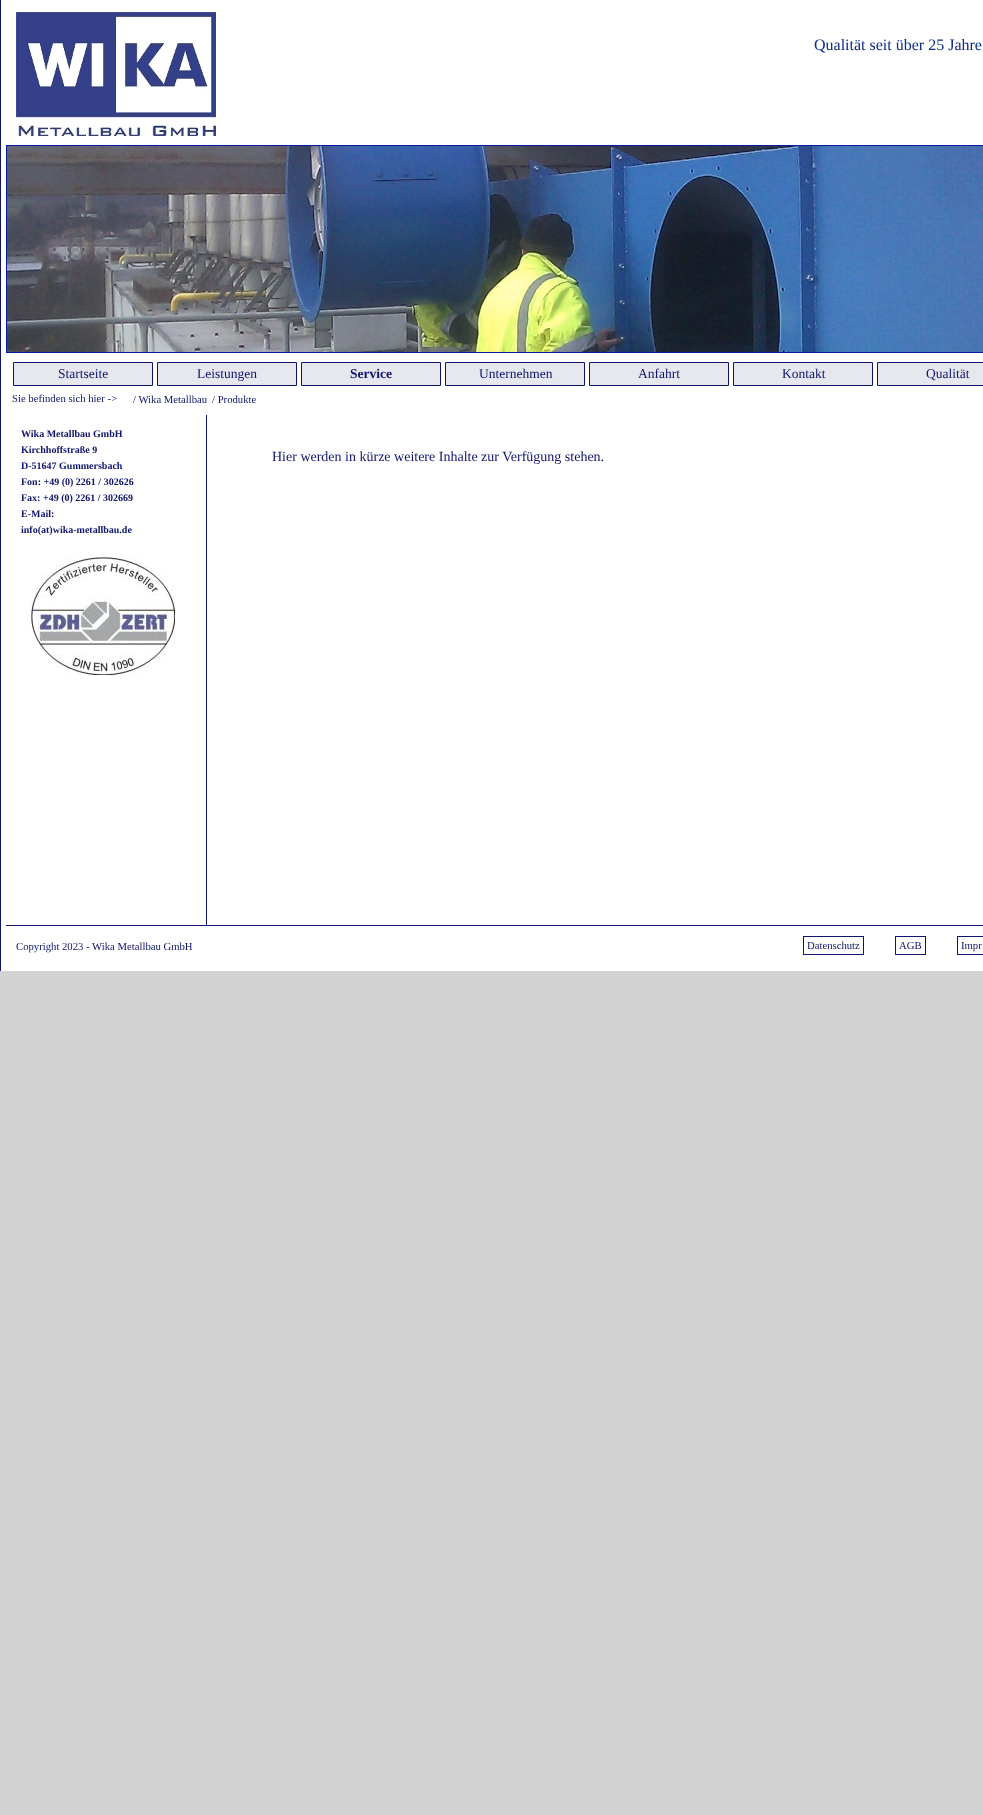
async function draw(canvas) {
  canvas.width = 983;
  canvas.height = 1815;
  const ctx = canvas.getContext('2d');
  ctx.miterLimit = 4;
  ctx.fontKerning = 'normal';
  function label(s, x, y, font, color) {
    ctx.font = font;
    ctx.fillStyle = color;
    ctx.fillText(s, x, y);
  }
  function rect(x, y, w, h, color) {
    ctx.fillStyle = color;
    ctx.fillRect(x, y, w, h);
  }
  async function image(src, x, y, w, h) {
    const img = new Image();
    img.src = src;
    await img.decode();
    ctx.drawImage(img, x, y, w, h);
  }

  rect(0, 0, 983, 1815, '#d3d3d3');
  rect(1, 0, 982, 971, '#fff');
  rect(0, 0, 1, 971, '#0f146e');
  await image('assets/img1.png', 16, 12, 200, 124);
  label('Qualität seit über 25 Jahre', 814, 50, '16px Liberation Serif', '#0b298a');
  ctx.strokeStyle = '#071ba3';
  ctx.strokeRect(6.5, 145.5, 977, 207);
  await image('assets/img2.png', 7, 146, 976, 206);
  ctx.fillStyle = '#e6e8ed';
  ctx.beginPath();
  ctx.rect(13.5, 362.5, 139, 23);
  ctx.fill();
  ctx.strokeStyle = '#0f146e';
  ctx.stroke();
  label('Startseite', 58, 378, '13.5px Liberation Serif', '#0f146e');
  ctx.fillStyle = '#e6e8ed';
  ctx.beginPath();
  ctx.rect(157.5, 362.5, 139, 23);
  ctx.fill();
  ctx.stroke();
  label('Leistungen', 197, 378, '13.5px Liberation Serif', '#0f146e');
  ctx.fillStyle = '#e6e8ed';
  ctx.beginPath();
  ctx.rect(301.5, 362.5, 139, 23);
  ctx.fill();
  ctx.stroke();
  label('Service', 350, 378, 'bold 13.5px Liberation Serif', '#0f146e');
  ctx.fillStyle = '#e6e8ed';
  ctx.beginPath();
  ctx.rect(445.5, 362.5, 139, 23);
  ctx.fill();
  ctx.stroke();
  label('Unternehmen', 479, 378, '13.5px Liberation Serif', '#0f146e');
  ctx.fillStyle = '#e6e8ed';
  ctx.beginPath();
  ctx.rect(589.5, 362.5, 139, 23);
  ctx.fill();
  ctx.stroke();
  label('Anfahrt', 638, 378, '13.5px Liberation Serif', '#0f146e');
  ctx.fillStyle = '#e6e8ed';
  ctx.beginPath();
  ctx.rect(733.5, 362.5, 139, 23);
  ctx.fill();
  ctx.stroke();
  label('Kontakt', 782, 378, '13.5px Liberation Serif', '#0f146e');
  ctx.fillStyle = '#e6e8ed';
  ctx.beginPath();
  ctx.rect(877.5, 362.5, 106, 23);
  ctx.fill();
  ctx.stroke();
  label('Qualität', 926, 378, '13.5px Liberation Serif', '#0f146e');
  label('Sie befinden sich hier ->', 12, 402, '10.7px Liberation Serif', '#0f146e');
  label('/ Wika Metallbau', 133, 403, '10.7px Liberation Serif', '#0f146e');
  label('/ Produkte', 212, 403, '10.7px Liberation Serif', '#0f146e');
  label('Wika Metallbau GmbH', 21, 437, 'bold 10px Liberation Serif', '#0f146e');
  label('Kirchhoffstraße 9', 21, 453, 'bold 10px Liberation Serif', '#0f146e');
  label('D-51647 Gummersbach', 21, 469, 'bold 10px Liberation Serif', '#0f146e');
  label('Fon: +49 (0) 2261 / 302626', 21, 485, 'bold 10px Liberation Serif', '#0f146e');
  label('Fax: +49 (0) 2261 / 302669', 21, 501, 'bold 10px Liberation Serif', '#0f146e');
  label('E-Mail:', 21, 517, 'bold 10px Liberation Serif', '#0f146e');
  label('info(at)wika-metallbau.de', 21, 533, 'bold 10px Liberation Serif', '#0f146e');
  await image('assets/img3.png', 31, 557, 144, 118);
  rect(206, 415, 1, 510, '#0f146e');
  label('Hier werden in kürze weitere Inhalte zur Verfügung stehen.', 272, 461, '14px Liberation Serif', '#0f146e');
  rect(6, 925, 977, 1, '#0f146e');
  label('Copyright 2023 - Wika Metallbau GmbH', 16, 950, '10.7px Liberation Serif', '#0f146e');
  ctx.strokeRect(803.5, 936.5, 60, 18);
  label('Datenschutz', 807, 949, '10.7px Liberation Serif', '#0f146e');
  ctx.strokeRect(895.5, 936.5, 30, 18);
  label('AGB', 899, 949, '10.7px Liberation Serif', '#0f146e');
  ctx.strokeRect(957.5, 936.5, 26, 18);
  label('Impr', 961, 949, '10.7px Liberation Serif', '#0f146e');
}

draw(document.querySelector('canvas'));
